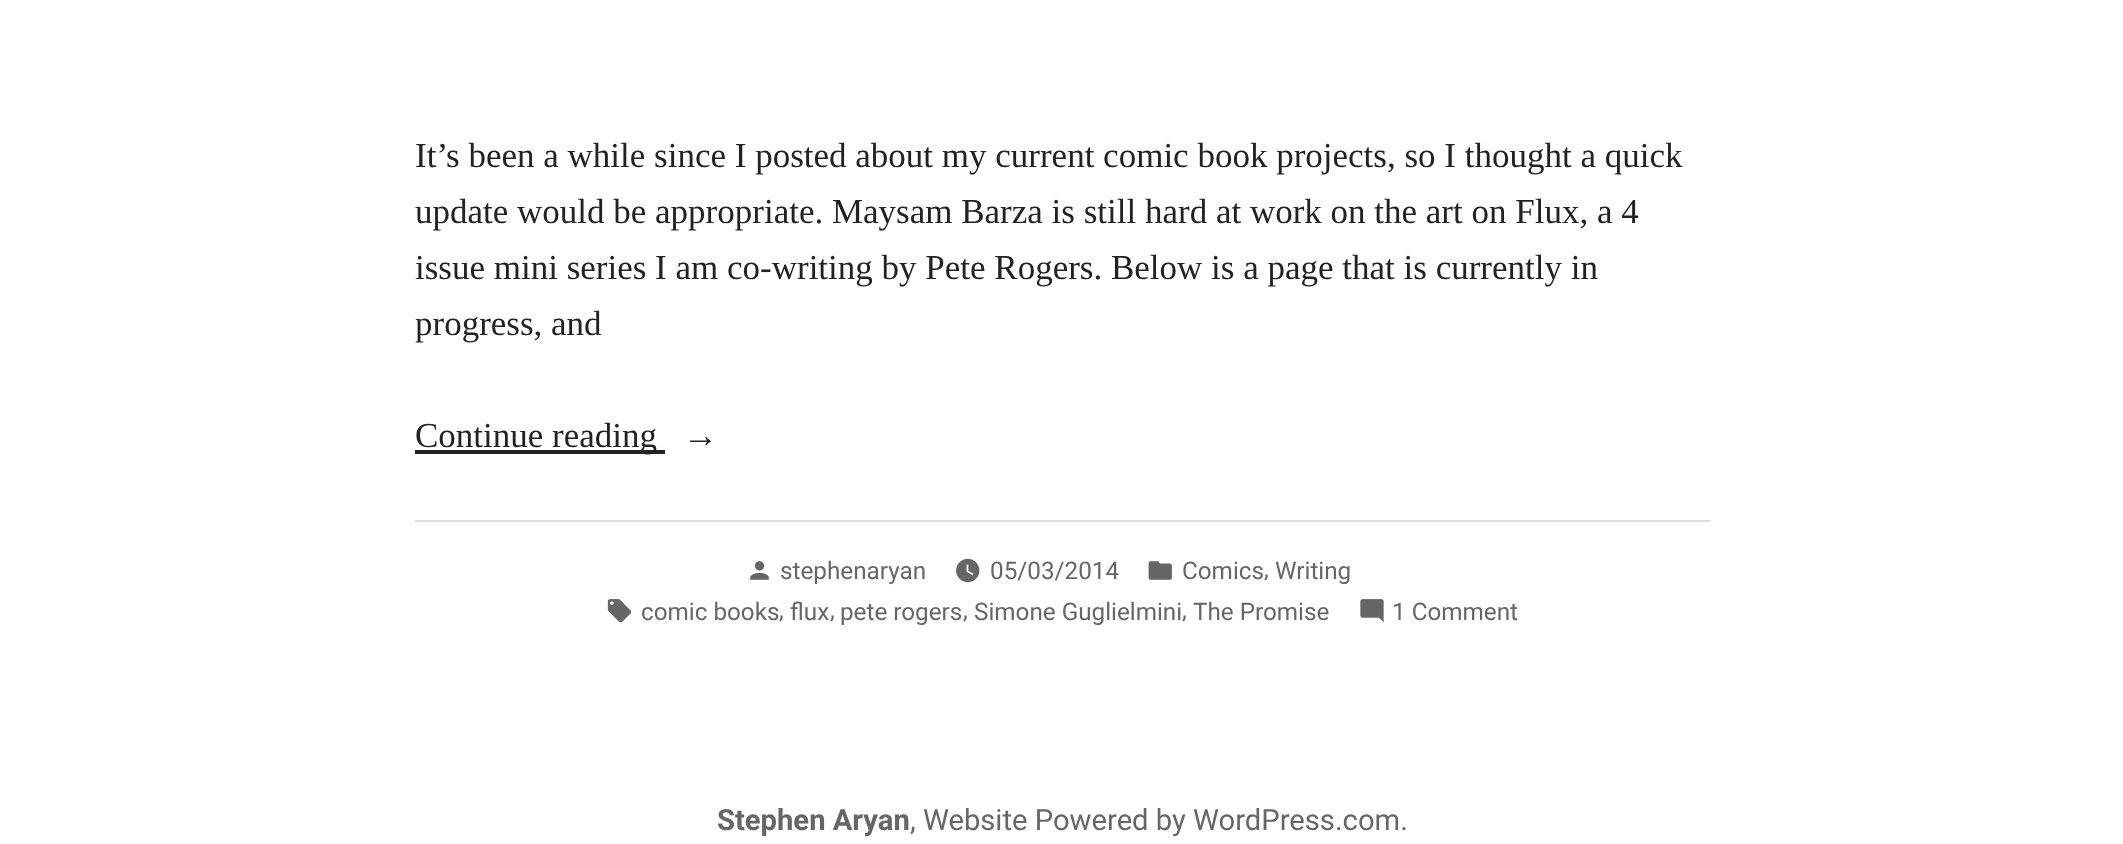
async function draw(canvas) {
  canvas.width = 2123;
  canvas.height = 844;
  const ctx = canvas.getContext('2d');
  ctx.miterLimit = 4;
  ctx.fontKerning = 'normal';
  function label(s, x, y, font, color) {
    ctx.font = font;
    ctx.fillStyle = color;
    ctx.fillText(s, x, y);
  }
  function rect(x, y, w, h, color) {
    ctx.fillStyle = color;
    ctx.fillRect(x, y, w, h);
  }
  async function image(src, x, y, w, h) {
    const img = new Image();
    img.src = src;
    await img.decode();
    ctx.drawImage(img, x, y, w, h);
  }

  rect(0, 0, 2123, 844, '#fff');
  label('It’s been a while since I posted about my current comic book projects, so I thought a quick', 415, 167, '35px Liberation Serif', '#222');
  label('update would be appropriate. Maysam Barza is still hard at work on the art on Flux, a 4', 415, 223, '35px Liberation Serif', '#222');
  label('issue mini series I am co-writing by Pete Rogers. Below is a page that is currently in', 415, 279, '35px Liberation Serif', '#222');
  label('progress, and', 415, 335, '35px Liberation Serif', '#222');
  rect(415, 450, 250, 4, '#222');
  label('Continue reading', 415, 447, '35px Liberation Serif', '#222');
  label('→', 683, 447, '35px Liberation Serif', '#222');
  rect(415, 520, 1295, 2, '#ddd');
  await image('assets/img1.png', 750, 561, 19, 19);
  label('stephenaryan', 780, 579, '24.25px Roboto', '#666');
  await image('assets/img2.png', 956, 558, 24, 25);
  label('05/03/2014', 990, 579, '24.25px Roboto', '#666');
  await image('assets/img3.png', 1148, 561, 24, 19);
  label('Comics', 1182, 579, '24.25px Roboto', '#666');
  label(',', 1264, 577, '24.25px Roboto', '#666');
  label('Writing', 1275, 579, '24.25px Roboto', '#666');
  await image('assets/img4.png', 607, 599, 25, 24);
  label('comic books', 641, 620, '24.25px Roboto', '#666');
  label(',', 779, 618, '24.25px Roboto', '#666');
  label('flux', 790, 620, '24.25px Roboto', '#666');
  label(',', 830, 618, '24.25px Roboto', '#666');
  label('pete rogers', 840, 620, '24.25px Roboto', '#666');
  label(',', 963, 618, '24.25px Roboto', '#666');
  label('Simone Guglielmini', 974, 620, '24.25px Roboto', '#666');
  label(',', 1182, 618, '24.25px Roboto', '#666');
  label('The Promise', 1193, 620, '24.25px Roboto', '#666');
  await image('assets/img5.png', 1360, 599, 24, 24);
  label('1 Comment', 1392, 620, '24.25px Roboto', '#666');
  label('Stephen Aryan', 717, 830, 'bold 29.2px Roboto', '#666');
  label(', Website Powered by WordPress.com.', 910, 830, '29.2px Roboto', '#666');
}

draw(document.querySelector('canvas'));
